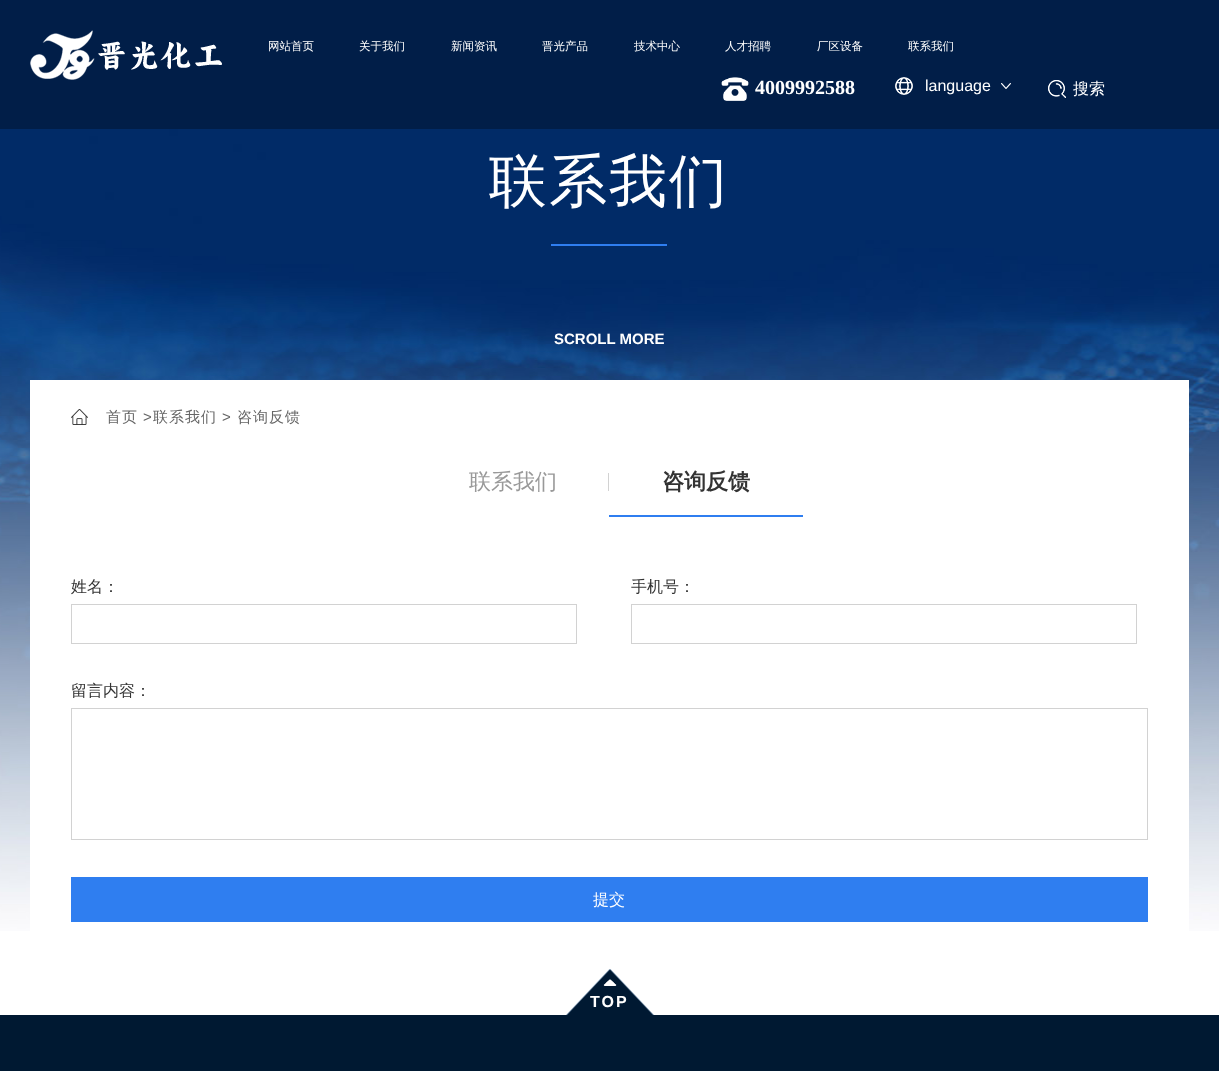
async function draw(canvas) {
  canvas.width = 1219;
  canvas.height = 1071;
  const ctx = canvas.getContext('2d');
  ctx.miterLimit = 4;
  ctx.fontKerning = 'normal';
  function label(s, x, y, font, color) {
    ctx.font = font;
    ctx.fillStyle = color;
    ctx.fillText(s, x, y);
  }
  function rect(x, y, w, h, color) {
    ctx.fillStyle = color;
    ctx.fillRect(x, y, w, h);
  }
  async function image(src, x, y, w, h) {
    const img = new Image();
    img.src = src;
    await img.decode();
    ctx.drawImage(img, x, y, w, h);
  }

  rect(0, 0, 1219, 1071, '#fff');
  rect(0, 0, 1219, 129, '#011e48');
  await image('assets/img1.png', 30, 30, 192, 50);
  label('网站首页', 268, 50, '500 11.5px WenQuanYi Zen Hei', '#fff');
  label('关于我们', 359, 50, '500 11.5px WenQuanYi Zen Hei', '#fff');
  label('新闻资讯', 451, 50, '500 11.5px WenQuanYi Zen Hei', '#fff');
  label('晋光产品', 542, 50, '500 11.5px WenQuanYi Zen Hei', '#fff');
  label('技术中心', 634, 50, '500 11.5px WenQuanYi Zen Hei', '#fff');
  label('人才招聘', 725, 50, '500 11.5px WenQuanYi Zen Hei', '#fff');
  label('厂区设备', 817, 50, '500 11.5px WenQuanYi Zen Hei', '#fff');
  label('联系我们', 908, 50, '500 11.5px WenQuanYi Zen Hei', '#fff');
  await image('assets/img2.png', 721, 77, 28, 24);
  label('4009992588', 755, 94, 'bold 20px Liberation Serif', '#fff');
  await image('assets/img3.png', 895, 77, 18, 18);
  label('language', 925, 91, '16px Liberation Sans', '#fff');
  await image('assets/img4.png', 1001, 83, 10, 6);
  await image('assets/img5.png', 1048, 80, 18, 18);
  label('搜索', 1073, 94, '500 16px WenQuanYi Zen Hei', '#fff');
  await image('assets/img6.png', 0, 129, 1219, 802);
  ctx.letterSpacing = '2px';
  label('联系我们', 489, 201, '500 58px WenQuanYi Zen Hei', '#fff');
  rect(551, 244, 116, 2, '#2f7ef0');
  ctx.letterSpacing = '0px';
  label('SCROLL MORE', 554, 344, 'bold 15px Liberation Sans', '#fff');
  rect(30, 380, 1159, 551, '#fff');
  await image('assets/img7.png', 71, 409, 17, 16);
  ctx.letterSpacing = '1px';
  label('首页', 106, 422, '500 15px WenQuanYi Zen Hei', '#666');
  label('>', 143, 422, '15px Liberation Sans', '#666');
  label('联系我们', 153, 422, '500 15px WenQuanYi Zen Hei', '#666');
  label('>', 222, 422, '15px Liberation Sans', '#666');
  label('咨询反馈', 237, 422, '500 15px WenQuanYi Zen Hei', '#666');
  ctx.letterSpacing = '0px';
  label('联系我们', 469, 489, '500 22px WenQuanYi Zen Hei', '#999');
  rect(608, 473, 1, 18, '#d2d2d2');
  label('咨询反馈', 662, 489, 'bold 22px WenQuanYi Zen Hei', '#333');
  rect(609, 515, 194, 2, '#2f7ef0');
  label('姓名：', 71, 592, '500 16px WenQuanYi Zen Hei', '#333');
  ctx.strokeStyle = '#d2d2d2';
  ctx.strokeRect(71.5, 604.5, 505, 39);
  label('手机号：', 631, 592, '500 16px WenQuanYi Zen Hei', '#333');
  ctx.strokeRect(631.5, 604.5, 505, 39);
  label('留言内容：', 71, 696, '500 16px WenQuanYi Zen Hei', '#333');
  ctx.strokeRect(71.5, 708.5, 1076, 131);
  rect(71, 877, 1077, 45, '#2f7ef0');
  label('提交', 593, 905, '500 16px WenQuanYi Zen Hei', '#fff');
  rect(0, 1015, 1219, 56, '#001932');
  await image('assets/img8.png', 566, 969, 88, 46);
  await image('assets/img9.png', 603, 979, 14, 7);
  ctx.letterSpacing = '2px';
  label('TOP', 590, 1007, 'bold 16px Liberation Sans', '#fff');
}

draw(document.querySelector('canvas'));
